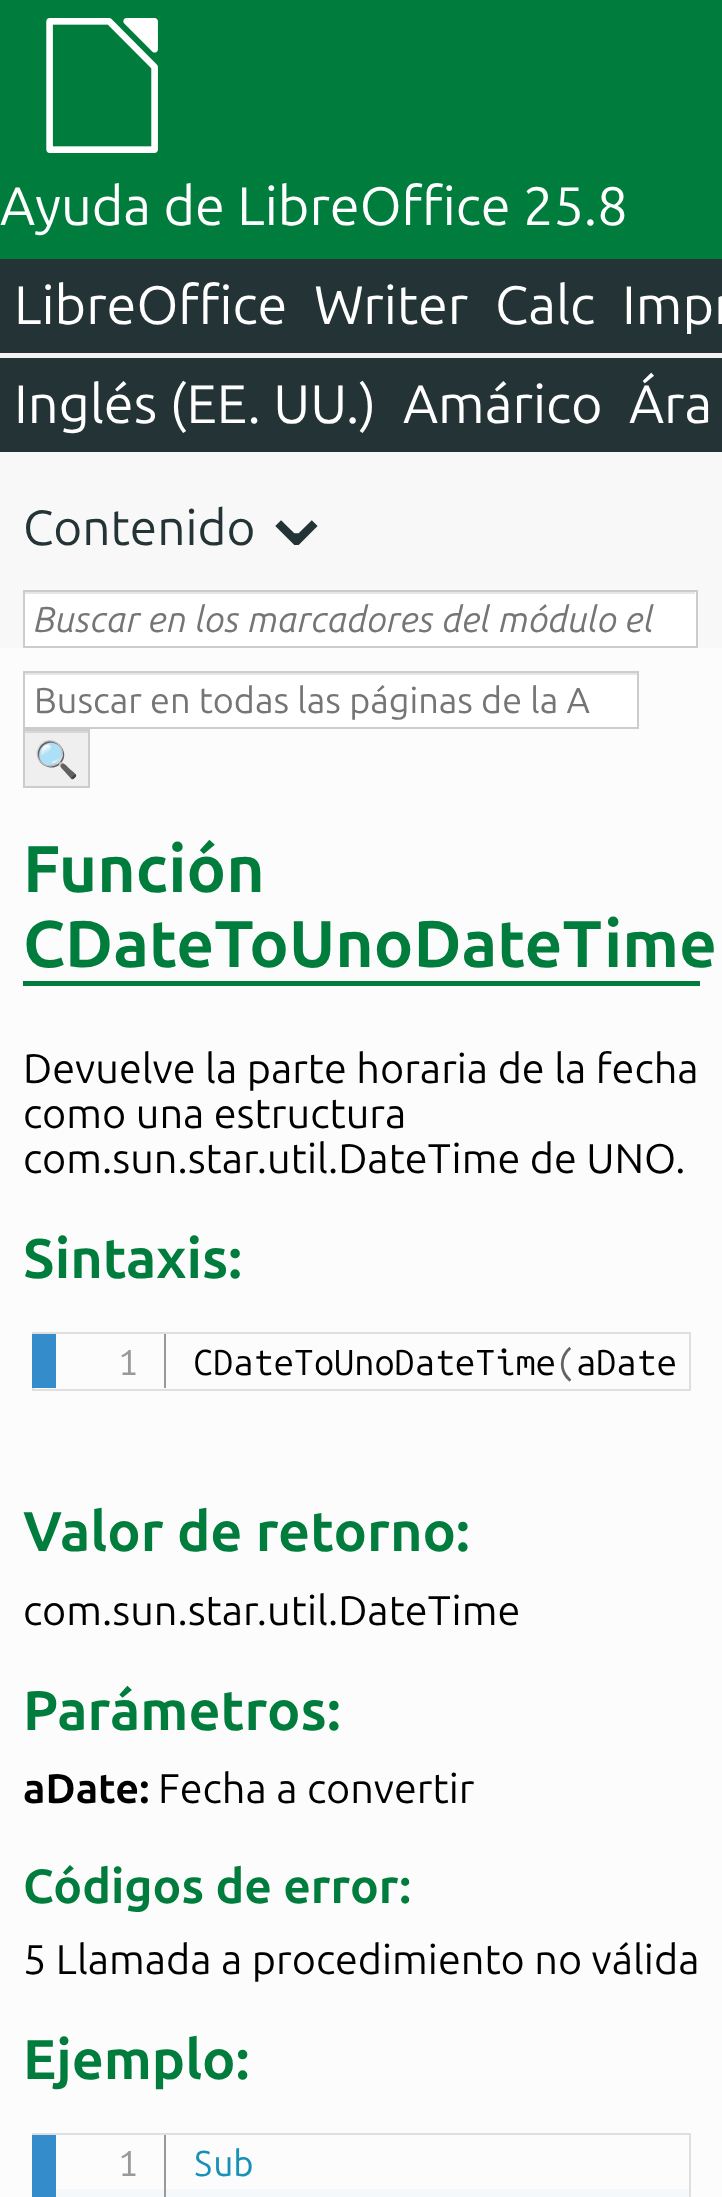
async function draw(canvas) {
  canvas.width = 722;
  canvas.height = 2197;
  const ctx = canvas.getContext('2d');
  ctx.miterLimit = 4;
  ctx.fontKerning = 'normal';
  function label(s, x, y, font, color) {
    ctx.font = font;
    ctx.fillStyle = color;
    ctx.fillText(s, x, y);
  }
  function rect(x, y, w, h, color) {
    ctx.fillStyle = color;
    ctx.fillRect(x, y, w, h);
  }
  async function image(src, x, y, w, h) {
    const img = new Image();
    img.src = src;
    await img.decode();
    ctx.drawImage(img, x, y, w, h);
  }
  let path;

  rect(0, 0, 722, 2197, '#f7f8f7');
  rect(0, 0, 722, 259, '#007c3c');
  await image('assets/img1.png', 46, 18, 112, 135);
  label('Ayuda de LibreOffice 25.8', 0, 225, '54px Ubuntu', '#fff');
  rect(0, 259, 722, 94, '#233336');
  rect(0, 353, 722, 5, '#f3f3f3');
  label('LibreOffice', 14, 324, '54px Ubuntu', '#fff');
  label('Writer', 314, 324, '54px Ubuntu', '#fff');
  label('Calc', 495, 324, '54px Ubuntu', '#fff');
  label('Impr', 622, 324, '54px Ubuntu', '#fff');
  rect(0, 358, 722, 94, '#233336');
  label('Inglés (EE. UU.)', 14, 423, '54px Ubuntu', '#fff');
  label('Amárico', 403, 423, '54px Ubuntu', '#fff');
  label('Ára', 629, 423, '54px Ubuntu', '#fff');
  label('Contenido', 23, 545, '49.5px Ubuntu', '#233336');
  label('⌄', 255, 545, '99px DejaVu Sans', '#233336');
  rect(25, 592, 671, 54, '#fff');
  rect(25, 592, 670, 2, '#e6e6e6');
  ctx.strokeStyle = '#ccc';
  ctx.lineWidth = 2;
  ctx.strokeRect(24, 591, 673, 56);
  label('Buscar en los marcadores del módulo el', 34, 632, 'italic 36px Ubuntu', '#757575');
  rect(0, 648, 722, 1549, '#fcfcfc');
  rect(25, 675, 612, 52, '#fff');
  rect(25, 673, 612, 2, '#e6e6e6');
  ctx.strokeRect(24, 672, 614, 56);
  label('Buscar en todas las páginas de la A', 34, 713, '36px Ubuntu', '#757575');
  rect(25, 733, 63, 53, '#efefef');
  rect(25, 731, 63, 2, '#d7d7d7');
  ctx.strokeRect(24, 730, 65, 57);
  label('🔍', 34, 772, '36px Noto Color Emoji', '#000');
  rect(23, 981, 677, 5, '#007c3c');
  label('Función', 23, 892, 'bold 65.9px Ubuntu', '#007c3c');
  label('CDateToUnoDateTime', 23, 967, 'bold 65.9px Ubuntu', '#007c3c');
  label('Devuelve la parte horaria de la fecha', 23, 1083, '41.4px Ubuntu', '#000');
  label('como una estructura', 23, 1128, '41.4px Ubuntu', '#000');
  label('com.sun.star.util.DateTime de UNO.', 23, 1173, '41.4px Ubuntu', '#000');
  label('Sintaxis:', 23, 1278, 'bold 55.75px Ubuntu', '#007c3c');
  ctx.strokeStyle = '#dfdfdf';
  ctx.strokeRect(33, 1333, 657, 57);
  ctx.fillStyle = '#358ccb';
  path = new Path2D('M32 1334V1388H34V1334H686Z');
  ctx.fill(path);
  rect(34, 1334, 22, 54, '#358ccb');
  label('CDateToUnoDateTime aDate', 193, 1375, '36px Ubuntu Mono', '#000');
  label('(', 556, 1375, '36px Ubuntu Mono', '#5f6364');
  rect(164, 1334, 2, 54, '#999');
  ctx.letterSpacing = '-2px';
  label('1', 118, 1375, '36px Ubuntu Mono', '#999');
  ctx.letterSpacing = '0px';
  label('Valor de retorno:', 23, 1551, 'bold 55.75px Ubuntu', '#007c3c');
  label('com.sun.star.util.DateTime', 23, 1625, '41.4px Ubuntu', '#000');
  label('Parámetros:', 23, 1730, 'bold 55.75px Ubuntu', '#007c3c');
  label('aDate:', 23, 1803, 'bold 41.4px Ubuntu', '#000');
  label('Fecha a convertir', 158, 1803, '41.4px Ubuntu', '#000');
  label('Códigos de error:', 23, 1903, 'bold 48px Ubuntu', '#007c3c');
  label('5 Llamada a procedimiento no válida', 23, 1974, '41.4px Ubuntu', '#000');
  label('Ejemplo:', 23, 2079, 'bold 55.75px Ubuntu', '#007c3c');
  ctx.strokeRect(33, 2134, 657, 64);
  ctx.fillStyle = '#358ccb';
  path = new Path2D('M32 2135V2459H34V2135H686Z');
  ctx.fill(path);
  rect(56, 2189, 633, 8, '#f5f8fa');
  rect(34, 2135, 22, 62, '#358ccb');
  rect(164, 2135, 2, 62, '#999');
  ctx.letterSpacing = '-2px';
  label('1', 118, 2176, '36px Ubuntu Mono', '#999');
  ctx.letterSpacing = '0px';
  label('Sub', 193, 2176, '36px Ubuntu Mono', '#1990b8');
}

draw(document.querySelector('canvas'));
